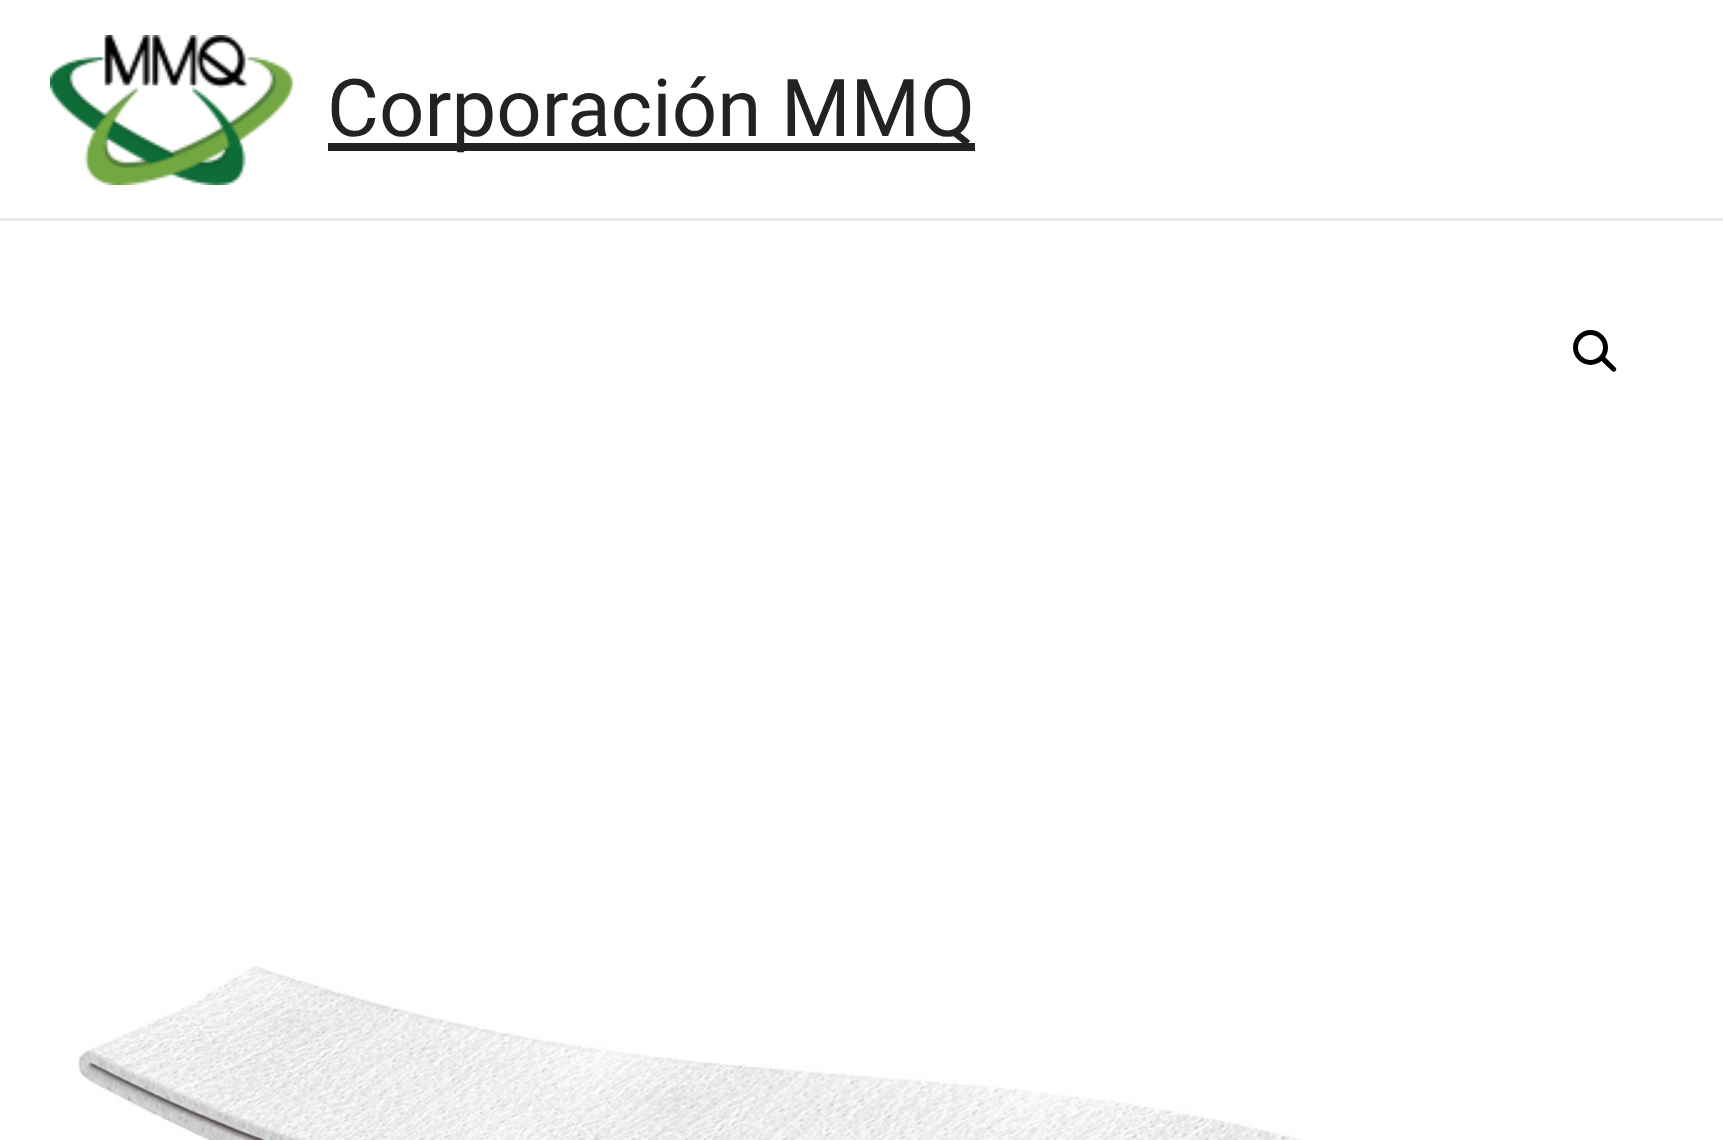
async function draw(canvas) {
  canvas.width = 1723;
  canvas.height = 1140;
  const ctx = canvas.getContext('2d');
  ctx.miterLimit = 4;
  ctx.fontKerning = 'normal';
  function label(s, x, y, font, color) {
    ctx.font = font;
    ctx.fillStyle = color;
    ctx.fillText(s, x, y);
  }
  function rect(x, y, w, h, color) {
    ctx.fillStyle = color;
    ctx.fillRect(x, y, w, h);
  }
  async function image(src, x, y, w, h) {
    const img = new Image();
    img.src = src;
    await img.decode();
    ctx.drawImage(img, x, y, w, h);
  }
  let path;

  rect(0, 0, 1723, 1140, '#fff');
  rect(0, 218, 1723, 3, '#eaeaea');
  await image('assets/img1.png', 50, 35, 243, 150);
  rect(328, 143, 647, 8, '#222');
  label('Corporación MMQ', 327, 136, '79.75px Roboto', '#222');
  ctx.beginPath();
  ctx.arc(1590.5, 347.5, 15, 0, 2 * Math.PI);
  ctx.strokeStyle = '#000';
  ctx.lineWidth = 5;
  ctx.stroke();
  ctx.fillStyle = '#000';
  path = new Path2D('M1601 357C1602 356 1604 356 1605 357L1615.5 367.5C1616.5 368.5 1616.5 370 1615.5 371C1614.5 372 1613 372 1612 371L1601 360.5C1600.5 359.5 1600.5 357.5 1601 357Z');
  ctx.fill(path);
  await image('assets/img2.png', 78, 966, 1224, 174);
}

draw(document.querySelector('canvas'));
